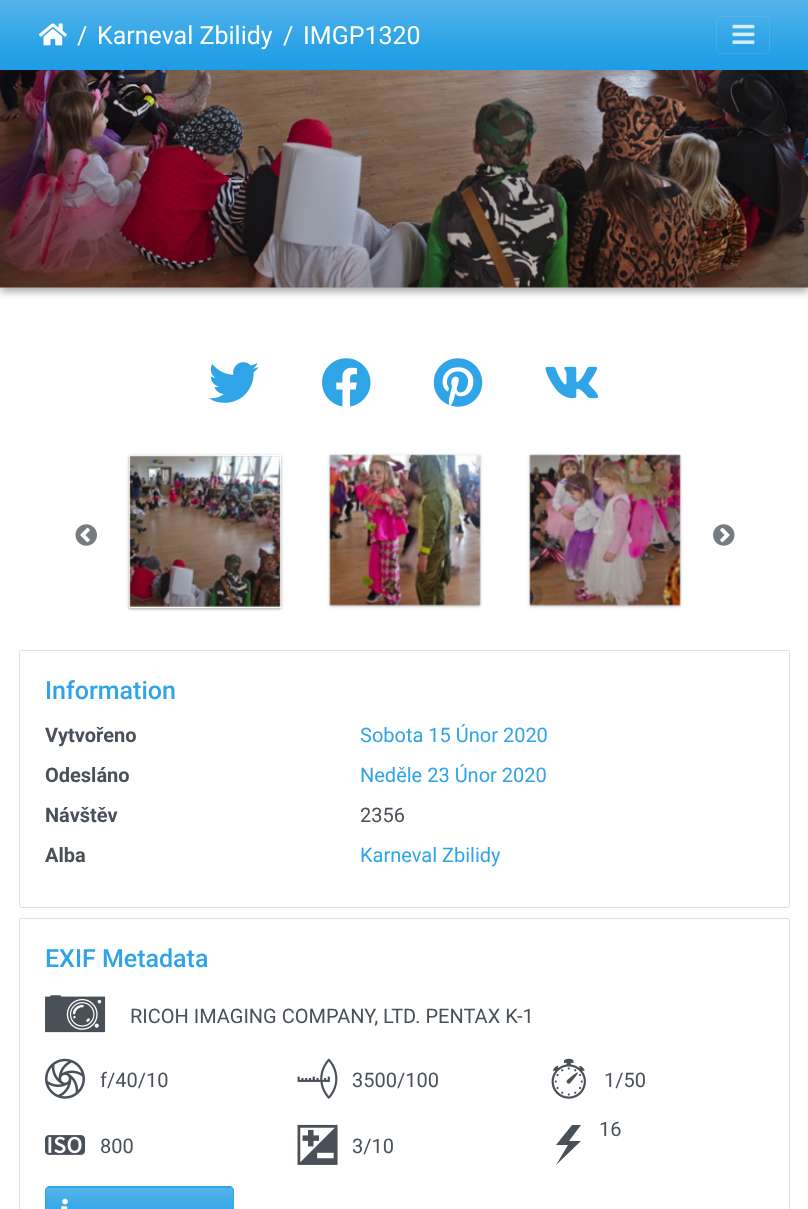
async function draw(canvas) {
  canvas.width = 808;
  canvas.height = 1209;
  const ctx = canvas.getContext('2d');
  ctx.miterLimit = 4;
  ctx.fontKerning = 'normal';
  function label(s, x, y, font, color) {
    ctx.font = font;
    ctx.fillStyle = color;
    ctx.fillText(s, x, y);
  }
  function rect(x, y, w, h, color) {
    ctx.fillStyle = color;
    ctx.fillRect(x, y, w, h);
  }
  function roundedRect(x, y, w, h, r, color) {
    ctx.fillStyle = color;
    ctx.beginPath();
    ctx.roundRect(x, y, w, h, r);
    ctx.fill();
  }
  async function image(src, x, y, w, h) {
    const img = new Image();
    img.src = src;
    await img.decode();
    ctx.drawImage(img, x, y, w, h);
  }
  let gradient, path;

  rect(0, 0, 808, 1209, '#fff');
  ctx.fillStyle = '#0000003b';
  ctx.filter = 'blur(4px)';
  ctx.beginPath();
  ctx.rect(0, -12, 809, 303);
  ctx.fill();
  ctx.filter = 'none';
  ctx.fillStyle = '#00000029';
  ctx.filter = 'blur(4px)';
  ctx.beginPath();
  ctx.rect(0, -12, 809, 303);
  ctx.fill();
  ctx.filter = 'none';
  await image('assets/img1.png', 0, 70, 808, 218);
  await image('assets/img2.png', 208, 362, 51, 41);
  await image('assets/img3.png', 322, 358, 49, 49);
  await image('assets/img4.png', 433, 358, 50, 49);
  await image('assets/img5.png', 545, 366, 54, 33);
  gradient = ctx.createLinearGradient(404, 0, 404, 70);
  gradient.addColorStop(0, '#54b4eb');
  gradient.addColorStop(0.6, '#2fa4e7');
  gradient.addColorStop(1, '#1d9ce5');
  ctx.fillStyle = gradient;
  ctx.fillRect(0, 0, 808, 70);
  await image('assets/img6.png', 39, 23, 28, 23);
  label('/', 77, 44, '25px Roboto', '#fff');
  label('Karneval Zbilidy', 97, 44, '25px Roboto', '#fff');
  label('/', 283, 44, '25px Roboto', '#fff');
  label('IMGP1320', 303, 44, '25px Roboto', '#fff');
  ctx.beginPath();
  ctx.roundRect(716.5, 16.5, 53, 37, 4.5);
  ctx.strokeStyle = '#ffffff1a';
  ctx.stroke();
  await image('assets/img7.png', 732, 24, 23, 20);
  await image('assets/img8.png', 75, 524, 22, 22);
  ctx.fillStyle = '#0000001f';
  ctx.filter = 'blur(2px)';
  ctx.beginPath();
  ctx.rect(129, 456, 152, 153);
  ctx.fill();
  ctx.filter = 'none';
  ctx.fillStyle = '#0000003d';
  ctx.filter = 'blur(1px)';
  ctx.beginPath();
  ctx.rect(129, 456, 152, 153);
  ctx.fill();
  ctx.filter = 'none';
  ctx.strokeStyle = '#fff';
  ctx.strokeRect(129.5, 455.5, 151, 152);
  await image('assets/img9.png', 129, 455, 152, 152);
  ctx.fillStyle = '#0000001f';
  ctx.filter = 'blur(2px)';
  ctx.beginPath();
  ctx.rect(330, 456, 150, 150);
  ctx.fill();
  ctx.filter = 'none';
  ctx.fillStyle = '#0000003d';
  ctx.filter = 'blur(1px)';
  ctx.beginPath();
  ctx.rect(330, 456, 150, 150);
  ctx.fill();
  ctx.filter = 'none';
  await image('assets/img10.png', 329, 454, 152, 152);
  ctx.fillStyle = '#0000001f';
  ctx.filter = 'blur(2px)';
  ctx.beginPath();
  ctx.rect(530, 456, 150, 150);
  ctx.fill();
  ctx.filter = 'none';
  ctx.fillStyle = '#0000003d';
  ctx.filter = 'blur(1px)';
  ctx.beginPath();
  ctx.rect(530, 456, 150, 150);
  ctx.fill();
  ctx.filter = 'none';
  await image('assets/img11.png', 529, 454, 152, 152);
  await image('assets/img12.png', 713, 524, 22, 22);
  ctx.beginPath();
  ctx.roundRect(19.5, 650.5, 770, 257, 2);
  ctx.strokeStyle = '#dfdfdf';
  ctx.stroke();
  label('Information', 45, 699, '500 25px Roboto', '#2fa4e7');
  label('Vytvořeno', 45, 742, 'bold 20px Roboto', '#495057');
  label('Sobota 15 Únor 2020', 360, 742, '20px Roboto', '#2fa4e7');
  label('Odesláno', 45, 782, 'bold 20px Roboto', '#495057');
  label('Neděle 23 Únor 2020', 360, 782, '20px Roboto', '#2fa4e7');
  label('Návštěv', 45, 822, 'bold 20px Roboto', '#495057');
  label('2356', 360, 822, '20px Roboto', '#495057');
  label('Alba', 45, 862, 'bold 20px Roboto', '#495057');
  label('Karneval Zbilidy', 360, 862, '20px Roboto', '#2fa4e7');
  ctx.beginPath();
  ctx.roundRect(19.5, 918.5, 770, 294, 2);
  ctx.stroke();
  label('EXIF Metadata', 45, 967, '500 25px Roboto', '#2fa4e7');
  await image('assets/img13.png', 45, 995, 61, 38);
  label('RICOH IMAGING COMPANY, LTD. PENTAX K-1', 130, 1023, '20px Roboto', '#495057');
  await image('assets/img14.png', 45, 1058, 40, 41);
  label('f/40/10', 100, 1087, '20px Roboto', '#495057');
  await image('assets/img15.png', 297, 1058, 41, 41);
  label('3500/100', 352, 1087, '20px Roboto', '#495057');
  await image('assets/img16.png', 551, 1058, 35, 41);
  label('1/50', 604, 1087, '20px Roboto', '#495057');
  path = new Path2D('M572 1125L556 1145H568L556 1165L581 1141H569L581 1125Z');
  ctx.fill(path);
  label('16', 599, 1136, '20px Roboto', '#495057');
  await image('assets/img17.png', 45, 1135, 40, 20);
  label('800', 100, 1153, '20px Roboto', '#495057');
  await image('assets/img18.png', 297, 1124, 41, 41);
  label('3/10', 352, 1153, '20px Roboto', '#495057');
  roundedRect(45, 1186, 189, 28, 5, '#2fa4e7');
  gradient = ctx.createLinearGradient(139, 1188, 139, 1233);
  gradient.addColorStop(0, '#54b4eb');
  gradient.addColorStop(0.6, '#2fa4e7');
  gradient.addColorStop(1, '#1d9ce5');
  ctx.fillStyle = gradient;
  ctx.fillRect(46, 1188, 187, 21);
  ctx.beginPath();
  ctx.roundRect(45.5, 1186.5, 188, 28, 4.5);
  ctx.strokeStyle = '#2fa4e7';
  ctx.stroke();
  await image('assets/img19.png', 61, 1198, 7, 11);
}

draw(document.querySelector('canvas'));
